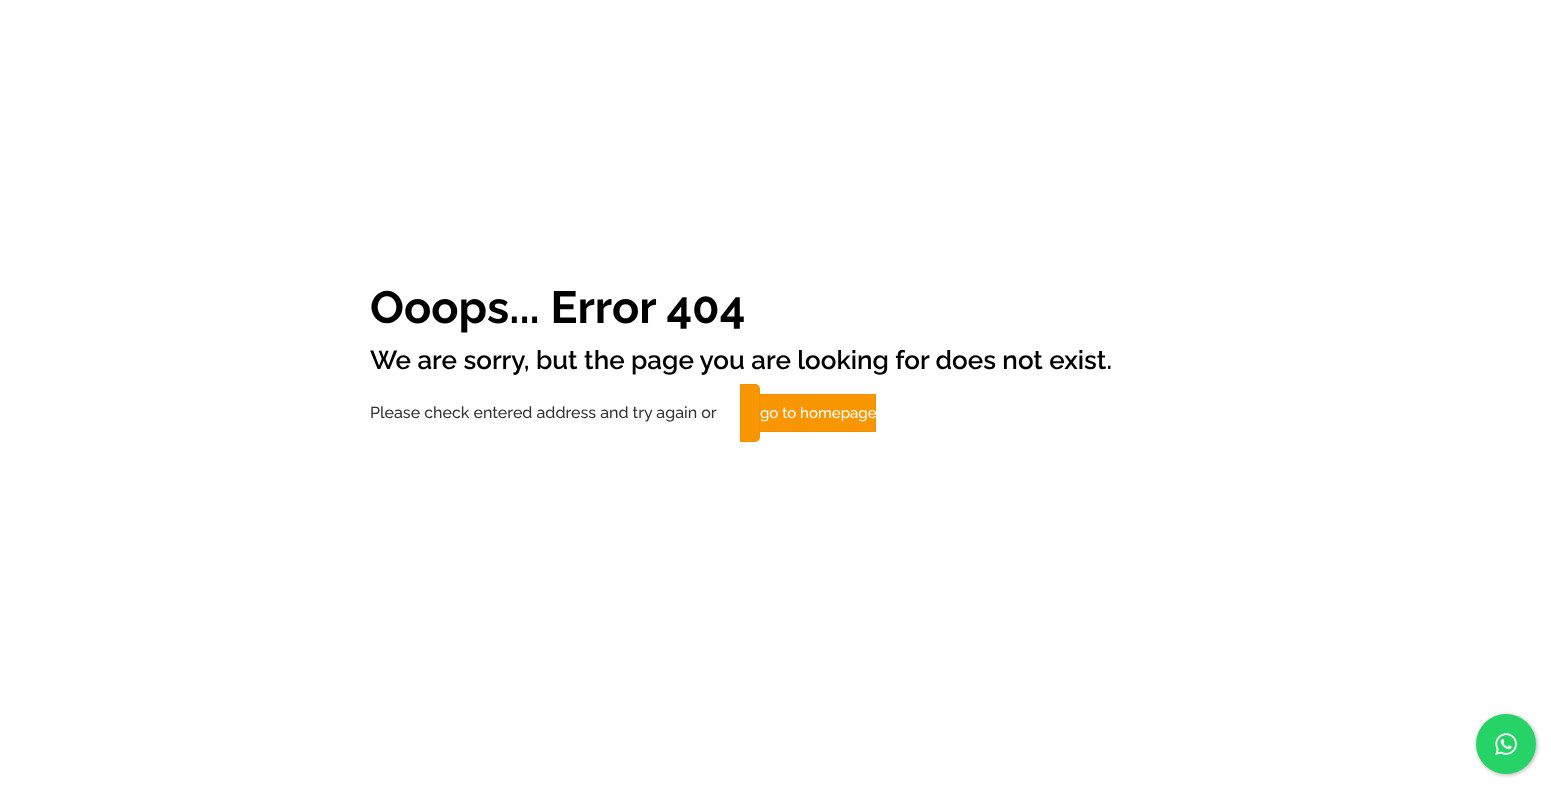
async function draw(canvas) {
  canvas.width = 1551;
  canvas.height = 789;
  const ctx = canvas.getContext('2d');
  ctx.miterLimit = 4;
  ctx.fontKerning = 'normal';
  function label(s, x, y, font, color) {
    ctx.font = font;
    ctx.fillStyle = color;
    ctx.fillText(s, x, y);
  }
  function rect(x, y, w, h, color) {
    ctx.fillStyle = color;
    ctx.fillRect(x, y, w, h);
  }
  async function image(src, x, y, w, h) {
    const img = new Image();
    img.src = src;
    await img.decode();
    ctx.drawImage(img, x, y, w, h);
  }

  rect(0, 0, 1551, 789, '#fff');
  label('Ooops... Error 404', 370, 323, 'bold 45px Raleway', '#000');
  label('We are sorry, but the page you are looking for does not exist.', 370, 369, '600 26px Raleway', '#000');
  label('Please check entered address and try again or', 370, 418, '500 16px Raleway', '#333');
  rect(760, 394, 116, 38, '#f89600');
  ctx.strokeStyle = '#00000008';
  ctx.strokeRect(740.5, 394.5, 135, 37);
  label('go to homepage', 760, 418, '500 15px Raleway', '#fff');
  ctx.fillStyle = '#f89600';
  ctx.beginPath();
  ctx.roundRect(740, 384, 20, 58, [0, 5, 5, 0]);
  ctx.fill();
  ctx.strokeRect(740.5, 384.5, 19, 57);
  ctx.fillStyle = '#0000004d';
  ctx.filter = 'blur(2px)';
  ctx.beginPath();
  ctx.roundRect(1477, 715, 60, 60, 30);
  ctx.fill();
  ctx.filter = 'none';
  ctx.fillStyle = '#25d366';
  ctx.beginPath();
  ctx.arc(1506, 744, 30, 0, 2 * Math.PI);
  ctx.fill();
  await image('assets/img1.png', 1495, 733, 22, 22);
}

draw(document.querySelector('canvas'));
